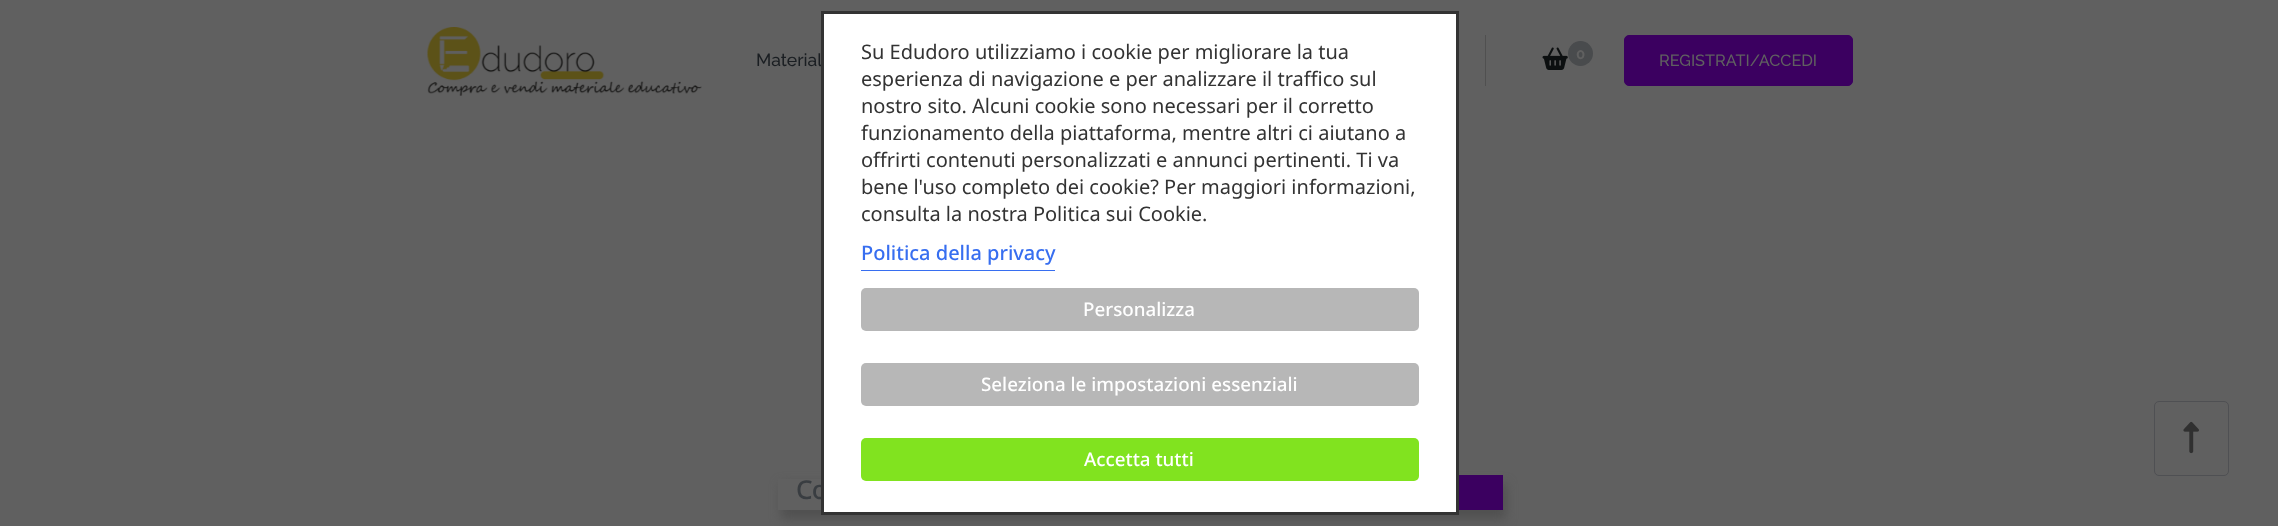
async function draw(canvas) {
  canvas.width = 2278;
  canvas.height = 526;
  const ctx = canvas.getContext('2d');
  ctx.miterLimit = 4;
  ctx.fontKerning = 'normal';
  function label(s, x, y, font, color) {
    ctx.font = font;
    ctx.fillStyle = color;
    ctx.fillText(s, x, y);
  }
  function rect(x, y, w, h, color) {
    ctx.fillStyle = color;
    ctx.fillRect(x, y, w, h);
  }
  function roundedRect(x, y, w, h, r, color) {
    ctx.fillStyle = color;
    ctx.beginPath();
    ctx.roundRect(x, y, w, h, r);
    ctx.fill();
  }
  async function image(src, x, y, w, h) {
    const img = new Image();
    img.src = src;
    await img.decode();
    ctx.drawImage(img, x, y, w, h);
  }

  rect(0, 0, 2278, 526, '#606060');
  label('Material', 756, 66, '500 17.5px Raleway', '#1a1e22');
  ctx.fillStyle = '#505050';
  ctx.filter = 'blur(5.5px)';
  ctx.beginPath();
  ctx.rect(781, 484, 725, 35);
  ctx.fill();
  ctx.filter = 'none';
  rect(778, 479, 43, 31, '#606060');
  label('Co', 796, 499, 'bold 25px Open Sans', '#393d41');
  ctx.fillStyle = '#fff';
  ctx.beginPath();
  ctx.rect(822.5, 12.5, 635, 501);
  ctx.fill();
  ctx.strokeStyle = '#333';
  ctx.lineWidth = 3;
  ctx.stroke();
  label('Su Edudoro utilizziamo i cookie per migliorare la tua', 861, 59, '20px Noto Sans', '#333');
  label('esperienza di navigazione e per analizzare il traffico sul', 861, 86, '20px Noto Sans', '#333');
  label('nostro sito. Alcuni cookie sono necessari per il corretto', 861, 113, '20px Noto Sans', '#333');
  label('funzionamento della piattaforma, mentre altri ci aiutano a', 861, 140, '20px Noto Sans', '#333');
  label('offrirti contenuti personalizzati e annunci pertinenti. Ti va', 861, 167, '20px Noto Sans', '#333');
  label('bene l\'uso completo dei cookie? Per maggiori informazioni,', 861, 194, '20px Noto Sans', '#333');
  label('consulta la nostra Politica sui Cookie.', 861, 221, '20px Noto Sans', '#333');
  label('Politica della privacy', 861, 260, '500 20px Noto Sans', '#376ef0');
  rect(861, 270, 194, 1, '#376ef0');
  roundedRect(861, 288, 558, 43, 5, '#b7b7b7');
  label('Personalizza', 1083, 316, '500 18.75px Noto Sans', '#fff');
  roundedRect(861, 363, 558, 43, 5, '#b7b7b7');
  label('Seleziona le impostazioni essenziali', 981, 391, '500 18.75px Noto Sans', '#fff');
  roundedRect(861, 438, 558, 43, 5, '#81e31f');
  label('Accetta tutti', 1084, 466, '500 18.75px Noto Sans', '#fff');
  await image('assets/img1.png', 427, 27, 275, 69);
  rect(1485, 35, 1, 51, '#505050');
  await image('assets/img2.png', 1542, 47, 26, 23);
  ctx.fillStyle = '#494b4d';
  ctx.beginPath();
  ctx.arc(1580.5, 53.5, 12.5, 0, 2 * Math.PI);
  ctx.fill();
  label('0', 1576, 59, 'bold 15px Raleway', '#606060');
  ctx.fillStyle = '#3b0060';
  ctx.beginPath();
  ctx.roundRect(1624.5, 35.5, 228, 50, 4.5);
  ctx.fill();
  ctx.strokeStyle = '#3b0060';
  ctx.lineWidth = 1;
  ctx.stroke();
  label('REGISTRATI/ACCEDI', 1659, 66, '500 16.25px Raleway', '#606060');
  ctx.beginPath();
  ctx.roundRect(2154.5, 401.5, 74, 74, 4.5);
  ctx.strokeStyle = '#4f5053';
  ctx.stroke();
  await image('assets/img3.png', 2183, 421, 16, 33);
  rect(1459, 475, 44, 35, '#3b0060');
}

draw(document.querySelector('canvas'));
